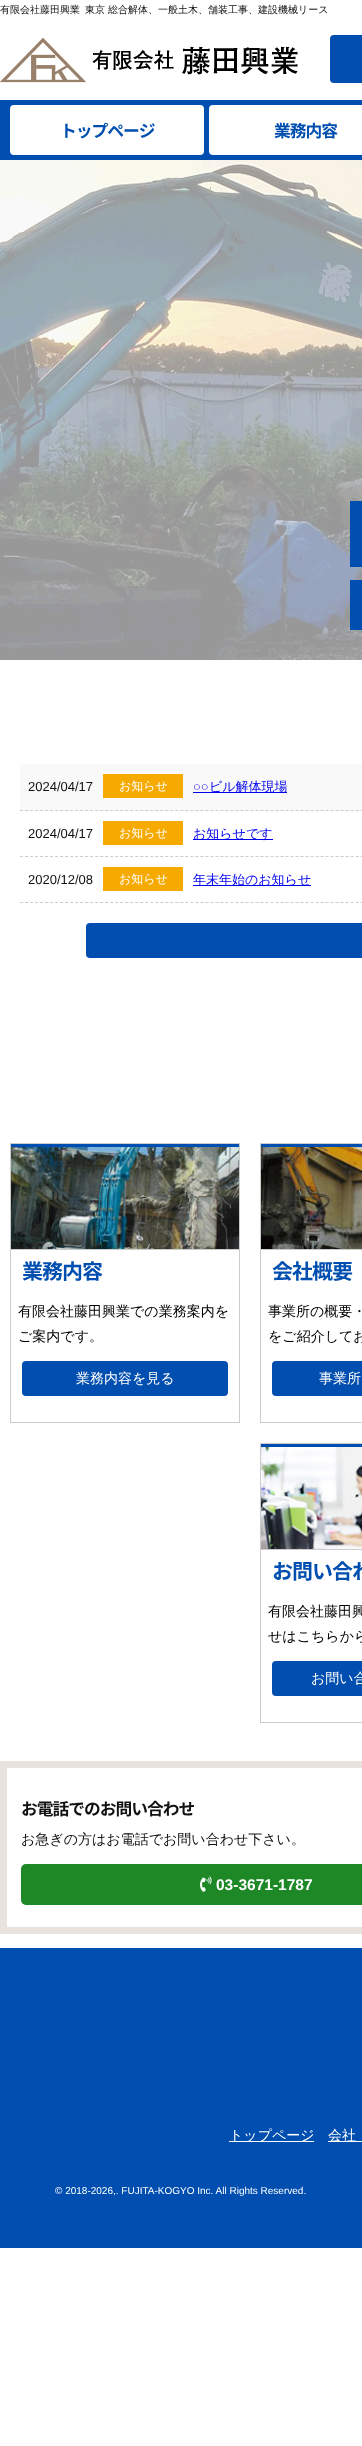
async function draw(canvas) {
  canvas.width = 362;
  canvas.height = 2446;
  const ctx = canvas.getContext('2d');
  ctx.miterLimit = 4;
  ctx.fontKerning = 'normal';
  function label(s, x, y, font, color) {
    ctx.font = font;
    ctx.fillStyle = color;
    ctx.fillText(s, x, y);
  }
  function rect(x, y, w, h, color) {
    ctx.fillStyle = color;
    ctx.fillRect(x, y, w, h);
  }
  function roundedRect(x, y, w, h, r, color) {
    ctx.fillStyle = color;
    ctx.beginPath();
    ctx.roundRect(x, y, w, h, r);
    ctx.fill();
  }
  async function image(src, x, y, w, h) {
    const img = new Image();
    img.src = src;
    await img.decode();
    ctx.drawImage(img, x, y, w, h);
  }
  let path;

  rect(0, 0, 362, 2446, '#fff');
  label('有限会社藤田興業', 0, 13, '500 10px WenQuanYi Zen Hei', '#111');
  label('東京 総合解体、一般土木、舗装工事、建設機械リース', 85, 13, '500 10px WenQuanYi Zen Hei', '#111');
  await image('assets/img1.png', 0, 38, 298, 45);
  roundedRect(330, 35, 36, 48, 4, '#004eaf');
  rect(0, 100, 362, 60, '#004eaf');
  roundedRect(10, 105, 194, 50, 4, '#fff');
  ctx.letterSpacing = '-1px';
  label('トップページ', 60, 137, 'bold 16.75px Noto Sans JP', '#004eaf');
  roundedRect(209, 105, 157, 50, 4, '#fff');
  label('業務内容', 274, 137, 'bold 16.75px Noto Sans JP', '#004eaf');
  await image('assets/img2.png', 0, 160, 362, 500);
  rect(350, 501, 12, 66, '#004eaf');
  rect(350, 580, 12, 50, '#004eaf');
  rect(20, 764, 342, 47, '#f9f9f9');
  path = new Path2D('M20 810.5H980');
  ctx.strokeStyle = '#ccc';
  ctx.setLineDash([3, 2.01]);
  ctx.stroke(path);
  ctx.letterSpacing = '0px';
  label('2024/04/17', 28, 791, '13px Liberation Sans', '#111');
  rect(103, 774, 80, 24, '#f6aa00');
  label('お知らせ', 119, 790, '500 12px WenQuanYi Zen Hei', '#fff');
  label('○○', 193, 791, '13px Liberation Sans', '#00e');
  rect(193, 792, 94, 1, '#00e');
  label('ビル解体現場', 209, 791, '500 13px WenQuanYi Zen Hei', '#00e');
  path = new Path2D('M20 856.5H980');
  ctx.stroke(path);
  label('2024/04/17', 28, 838, '13px Liberation Sans', '#111');
  rect(103, 821, 80, 24, '#f6aa00');
  label('お知らせ', 119, 837, '500 12px WenQuanYi Zen Hei', '#fff');
  rect(193, 839, 80, 1, '#00e');
  label('お知らせです', 193, 838, '500 13px WenQuanYi Zen Hei', '#00e');
  path = new Path2D('M20 902.5H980');
  ctx.stroke(path);
  label('2020/12/08', 28, 884, '13px Liberation Sans', '#111');
  rect(103, 867, 80, 24, '#f6aa00');
  label('お知らせ', 119, 883, '500 12px WenQuanYi Zen Hei', '#fff');
  rect(193, 885, 118, 1, '#00e');
  label('年末年始のお知らせ', 193, 884, '500 13px WenQuanYi Zen Hei', '#00e');
  roundedRect(86, 923, 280, 35, 4, '#004eaf');
  ctx.setLineDash([]);
  ctx.strokeRect(10.5, 1143.5, 229, 279);
  rect(11, 1144, 228, 3, '#004eaf');
  await image('assets/img3.png', 11, 1147, 228, 102);
  rect(11, 1249, 228, 1, '#ccc');
  ctx.letterSpacing = '-1px';
  label('業務内容', 22, 1279, 'bold 21px Noto Sans JP', '#004eaf');
  ctx.letterSpacing = '0px';
  label('有限会社藤田興業での業務案内を', 18, 1316, '500 14px WenQuanYi Zen Hei', '#000');
  label('ご案内です。', 18, 1341, '500 14px WenQuanYi Zen Hei', '#000');
  roundedRect(22, 1361, 206, 35, 4, '#004eaf');
  label('業務内容を見る', 76, 1383, '500 14px WenQuanYi Zen Hei', '#fff');
  ctx.strokeRect(260.5, 1143.5, 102, 279);
  rect(261, 1144, 101, 3, '#004eaf');
  await image('assets/img4.png', 261, 1147, 101, 102);
  rect(261, 1249, 101, 1, '#ccc');
  ctx.letterSpacing = '-1px';
  label('会社概要', 272, 1279, 'bold 21px Noto Sans JP', '#004eaf');
  ctx.letterSpacing = '0px';
  label('事業所の概要・', 268, 1316, '500 14px WenQuanYi Zen Hei', '#000');
  label('をご紹介してお', 268, 1341, '500 14px WenQuanYi Zen Hei', '#000');
  roundedRect(272, 1361, 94, 35, 4, '#004eaf');
  label('事業所', 319, 1383, '500 14px WenQuanYi Zen Hei', '#fff');
  ctx.strokeRect(260.5, 1443.5, 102, 279);
  rect(261, 1444, 101, 3, '#004eaf');
  await image('assets/img5.png', 261, 1447, 101, 102);
  rect(261, 1549, 101, 1, '#ccc');
  ctx.letterSpacing = '-1px';
  label('お問い合わ', 272, 1579, 'bold 21px Noto Sans JP', '#004eaf');
  ctx.letterSpacing = '0px';
  label('有限会社藤田興', 268, 1616, '500 14px WenQuanYi Zen Hei', '#000');
  label('せはこちらから', 268, 1641, '500 14px WenQuanYi Zen Hei', '#000');
  roundedRect(272, 1661, 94, 35, 4, '#004eaf');
  label('お問い合', 311, 1683, '500 14px WenQuanYi Zen Hei', '#fff');
  rect(0, 1761, 362, 173, '#eae2dd');
  rect(7, 1768, 355, 159, '#fff');
  ctx.letterSpacing = '-1px';
  label('お電話でのお問い合わせ', 21, 1815, 'bold 16.75px Noto Sans JP', '#111');
  ctx.letterSpacing = '0px';
  label('お急ぎの方はお電話でお問い合わせ下さい。', 21, 1844, '500 14px WenQuanYi Zen Hei', '#111');
  roundedRect(21, 1864, 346, 41, 5, '#1d8825');
  await image('assets/img6.png', 200, 1876, 12, 16);
  label('03-3671-1787', 216, 1890, 'bold 15.5px Liberation Sans', '#fff');
  rect(0, 1948, 362, 300, '#004eaf');
  rect(229, 2141, 85, 1, '#fff');
  label('トップページ', 229, 2140, '500 14px WenQuanYi Zen Hei', '#fff');
  rect(328, 2141, 34, 1, '#fff');
  label('会社', 328, 2140, '500 14px WenQuanYi Zen Hei', '#fff');
  label('© 2018-2026,. FUJITA-KOGYO Inc. All Rights Reserved.', 55, 2194, '10px Liberation Sans', '#fff');
}

draw(document.querySelector('canvas'));
